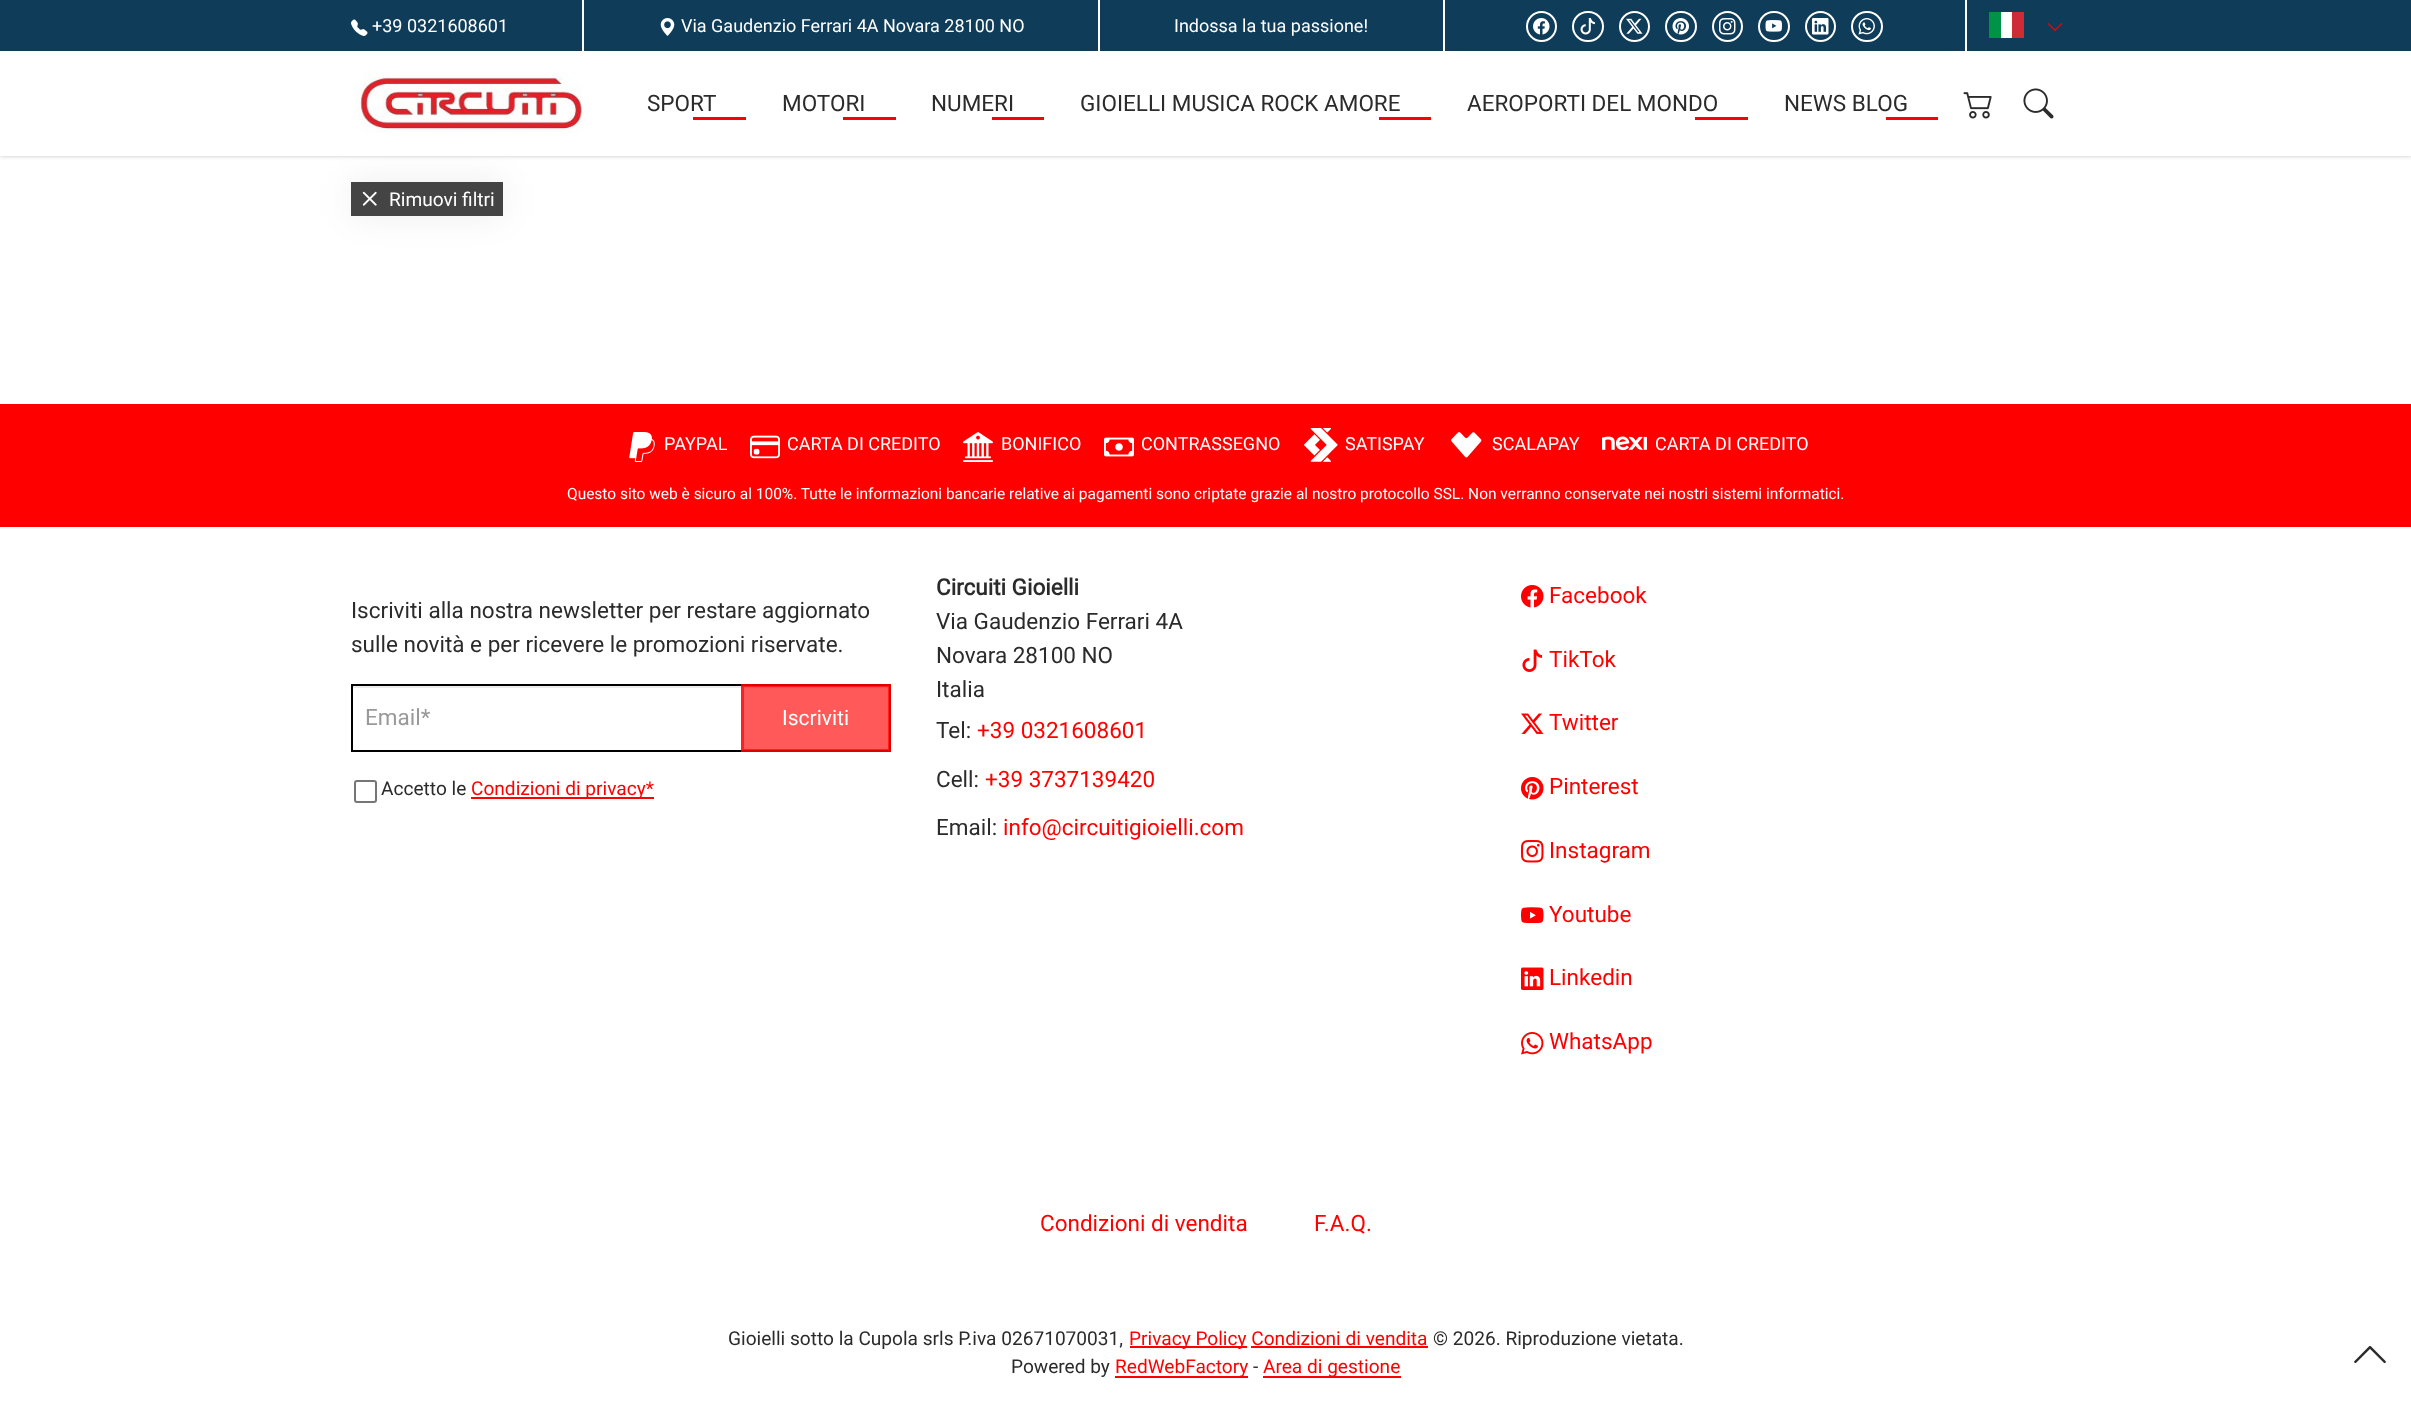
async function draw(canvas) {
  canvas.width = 2411;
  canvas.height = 1403;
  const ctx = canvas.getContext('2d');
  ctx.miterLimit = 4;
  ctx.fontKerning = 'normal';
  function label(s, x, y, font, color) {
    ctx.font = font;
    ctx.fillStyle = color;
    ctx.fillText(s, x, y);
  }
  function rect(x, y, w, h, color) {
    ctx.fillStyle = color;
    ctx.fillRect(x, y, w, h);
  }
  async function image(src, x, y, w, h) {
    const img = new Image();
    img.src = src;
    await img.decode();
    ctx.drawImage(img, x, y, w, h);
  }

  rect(0, 0, 2411, 1403, '#fff');
  ctx.fillStyle = '#0000003b';
  ctx.filter = 'blur(2px)';
  ctx.beginPath();
  ctx.rect(0, 0, 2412, 156);
  ctx.fill();
  ctx.filter = 'none';
  ctx.fillStyle = '#00000012';
  ctx.filter = 'blur(17px)';
  ctx.beginPath();
  ctx.rect(351, 182, 152, 34);
  ctx.fill();
  ctx.filter = 'none';
  rect(0, 51, 2411, 105, '#fff');
  rect(0, 0, 2411, 51, '#0f3c59');
  await image('assets/img1.png', 351, 19, 17, 17);
  label('+39 0321608601', 372, 32, '18px Roboto', '#fff');
  rect(582, 0, 2, 51, '#fff');
  await image('assets/img2.png', 660, 18, 15, 18);
  label('Via Gaudenzio Ferrari 4A Novara 28100 NO', 681, 32, '18px Roboto', '#fff');
  rect(1098, 0, 2, 51, '#fff');
  label('Indossa la tua passione!', 1174, 32, '18px Roboto', '#fff');
  rect(1443, 0, 2, 51, '#fff');
  ctx.beginPath();
  ctx.arc(1541.5, 26.5, 14.5, 0, 2 * Math.PI);
  ctx.strokeStyle = '#fff';
  ctx.lineWidth = 2;
  ctx.stroke();
  await image('assets/img3.png', 1533, 18, 17, 17);
  ctx.beginPath();
  ctx.roundRect(1573, 12, 30, 29, 14.5);
  ctx.stroke();
  await image('assets/img4.png', 1580, 18, 15, 17);
  ctx.beginPath();
  ctx.arc(1634.5, 26.5, 14.5, 0, 2 * Math.PI);
  ctx.stroke();
  await image('assets/img5.png', 1626, 18, 17, 16);
  ctx.beginPath();
  ctx.roundRect(1666, 12, 30, 29, 14.5);
  ctx.stroke();
  await image('assets/img6.png', 1672, 18, 17, 17);
  ctx.beginPath();
  ctx.arc(1727.5, 26.5, 14.5, 0, 2 * Math.PI);
  ctx.stroke();
  await image('assets/img7.png', 1719, 18, 17, 17);
  ctx.beginPath();
  ctx.roundRect(1759, 12, 30, 29, 14.5);
  ctx.stroke();
  await image('assets/img8.png', 1765, 20, 17, 12);
  ctx.beginPath();
  ctx.arc(1820.5, 26.5, 14.5, 0, 2 * Math.PI);
  ctx.stroke();
  await image('assets/img9.png', 1812, 18, 17, 17);
  ctx.beginPath();
  ctx.roundRect(1852, 12, 30, 29, 14.5);
  ctx.stroke();
  await image('assets/img10.png', 1858, 18, 17, 17);
  rect(1965, 0, 2, 51, '#fff');
  rect(2001, 12, 11, 26, '#fff');
  rect(1989, 12, 12, 26, '#009246');
  rect(2012, 12, 12, 26, '#ce2b37');
  await image('assets/img11.png', 2047, 23, 16, 8);
  await image('assets/img12.png', 353, 71, 229, 62);
  label('SPORT', 647, 111, '22.5px Roboto', '#2b2b2b');
  rect(693, 117, 53, 3, '#f00');
  label('MOTORI', 782, 111, '22.5px Roboto', '#2b2b2b');
  rect(843, 117, 53, 3, '#f00');
  label('NUMERI', 931, 111, '22.5px Roboto', '#2b2b2b');
  rect(992, 117, 52, 3, '#f00');
  label('GIOIELLI MUSICA ROCK AMORE', 1080, 111, '22.5px Roboto', '#2b2b2b');
  rect(1379, 117, 52, 3, '#f00');
  label('AEROPORTI DEL MONDO', 1467, 111, '22.5px Roboto', '#2b2b2b');
  rect(1695, 117, 53, 3, '#f00');
  label('NEWS BLOG', 1784, 111, '22.5px Roboto', '#2b2b2b');
  rect(1886, 117, 52, 3, '#f00');
  await image('assets/img13.png', 1963, 92, 29, 27);
  await image('assets/img14.png', 2023, 88, 31, 31);
  rect(351, 182, 152, 34, '#444');
  await image('assets/img15.png', 362, 191, 15, 15);
  label('Rimuovi filtri', 389, 206, '19.1px Roboto', '#fff');
  rect(0, 404, 2411, 123, '#f00');
  await image('assets/img16.png', 629, 432, 26, 30);
  label('PAYPAL', 664, 450, '18px Roboto', '#fff');
  await image('assets/img17.png', 750, 435, 30, 24);
  label('CARTA DI CREDITO', 787, 450, '18px Roboto', '#fff');
  await image('assets/img18.png', 963, 432, 30, 30);
  label('BONIFICO', 1001, 450, '18px Roboto', '#fff');
  await image('assets/img19.png', 1104, 437, 30, 20);
  label('CONTRASSEGNO', 1141, 450, '18px Roboto', '#fff');
  await image('assets/img20.png', 1304, 428, 34, 34);
  label('SATISPAY', 1345, 450, '18px Roboto', '#fff');
  await image('assets/img21.png', 1451, 432, 31, 26);
  label('SCALAPAY', 1492, 450, '18px Roboto', '#fff');
  await image('assets/img22.png', 1602, 436, 45, 15);
  label('CARTA DI CREDITO', 1655, 450, '18px Roboto', '#fff');
  label('Questo sito web è sicuro al 100%. Tutte le informazioni bancarie relative ai pagamenti sono criptate grazie al nostro protocollo SSL. Non verranno conservate nei nostri sistemi informatici.', 567, 499, '15.48px Roboto', '#fff');
  label('Iscriviti alla nostra newsletter per restare aggiornato', 351, 618, '22.5px Roboto', '#2b2b2b');
  label('sulle novità e per ricevere le promozioni riservate.', 351, 652, '22.5px Roboto', '#2b2b2b');
  rect(353, 686, 537, 2, '#ececec');
  ctx.strokeStyle = '#000';
  ctx.strokeRect(352, 685, 538, 66);
  label('Email*', 365, 725, '22.5px Roboto', '#999');
  ctx.beginPath();
  ctx.roundRect(355, 781, 21, 21, 2);
  ctx.strokeStyle = '#767676';
  ctx.stroke();
  label('Accetto le', 381, 795, '19.1px Roboto', '#2b2b2b');
  rect(471, 797, 183, 2, '#f00');
  label('Condizioni di privacy*', 471, 795, '19.1px Roboto', '#f00');
  rect(741, 684, 150, 68, '#ff0000a6');
  ctx.strokeStyle = '#ff0000a6';
  ctx.lineWidth = 3;
  ctx.strokeRect(742.5, 685.5, 147, 65);
  label('Iscriviti', 782, 725, '21px Roboto', '#fff');
  label('Circuiti Gioielli', 936, 595, 'bold 22.5px Roboto', '#2b2b2b');
  label('Via Gaudenzio Ferrari 4A', 936, 629, '22.5px Roboto', '#2b2b2b');
  label('Novara 28100 NO', 936, 663, '22.5px Roboto', '#2b2b2b');
  label('Italia', 936, 697, '22.5px Roboto', '#2b2b2b');
  label('Tel:', 936, 738, '22.5px Roboto', '#2b2b2b');
  label('+39 0321608601', 977, 738, '22.5px Roboto', '#f00');
  label('Cell:', 936, 787, '22.5px Roboto', '#2b2b2b');
  label('+39 3737139420', 985, 787, '22.5px Roboto', '#f00');
  label('Email:', 936, 835, '22.5px Roboto', '#2b2b2b');
  label('info@circuitigioielli.com', 1003, 835, '22.5px Roboto', '#f00');
  await image('assets/img23.png', 1521, 585, 23, 23);
  label('Facebook', 1549, 603, '22.5px Roboto', '#f00');
  await image('assets/img24.png', 1522, 649, 21, 23);
  label('TikTok', 1549, 667, '22.5px Roboto', '#f00');
  await image('assets/img25.png', 1521, 713, 23, 21);
  label('Twitter', 1549, 730, '22.5px Roboto', '#f00');
  await image('assets/img26.png', 1521, 777, 23, 23);
  label('Pinterest', 1549, 794, '22.5px Roboto', '#f00');
  await image('assets/img27.png', 1521, 840, 23, 23);
  label('Instagram', 1549, 858, '22.5px Roboto', '#f00');
  await image('assets/img28.png', 1521, 907, 23, 17);
  label('Youtube', 1549, 922, '22.5px Roboto', '#f00');
  await image('assets/img29.png', 1521, 967, 23, 23);
  label('Linkedin', 1549, 985, '22.5px Roboto', '#f00');
  await image('assets/img30.png', 1521, 1032, 23, 23);
  label('WhatsApp', 1549, 1049, '22.5px Roboto', '#f00');
  label('Condizioni di vendita', 1040, 1231, '22.5px Roboto', '#f00');
  label('F.A.Q.', 1314, 1231, '22.5px Roboto', '#f00');
  label('Gioielli sotto la Cupola srls P.iva 02671070031,', 728, 1345, '19.1px Roboto', '#2b2b2b');
  rect(1130, 1346, 117, 2, '#f00');
  label('Privacy Policy Condizioni di vendita', 1129, 1345, '19.1px Roboto', '#f00');
  label('© 2026. Riproduzione vietata.', 1433, 1345, '19.1px Roboto', '#2b2b2b');
  rect(1251, 1346, 177, 2, '#f00');
  label('Powered by', 1011, 1373, '19.1px Roboto', '#2b2b2b');
  rect(1115, 1376, 133, 2, '#f00');
  label('RedWebFactory', 1115, 1373, '19.1px Roboto', '#f00');
  label('-', 1253, 1373, '19.1px Roboto', '#2b2b2b');
  rect(1263, 1376, 138, 2, '#f00');
  label('Area di gestione', 1263, 1373, '19.1px Roboto', '#f00');
  await image('assets/img31.png', 2354, 1346, 32, 18);
}

draw(document.querySelector('canvas'));
